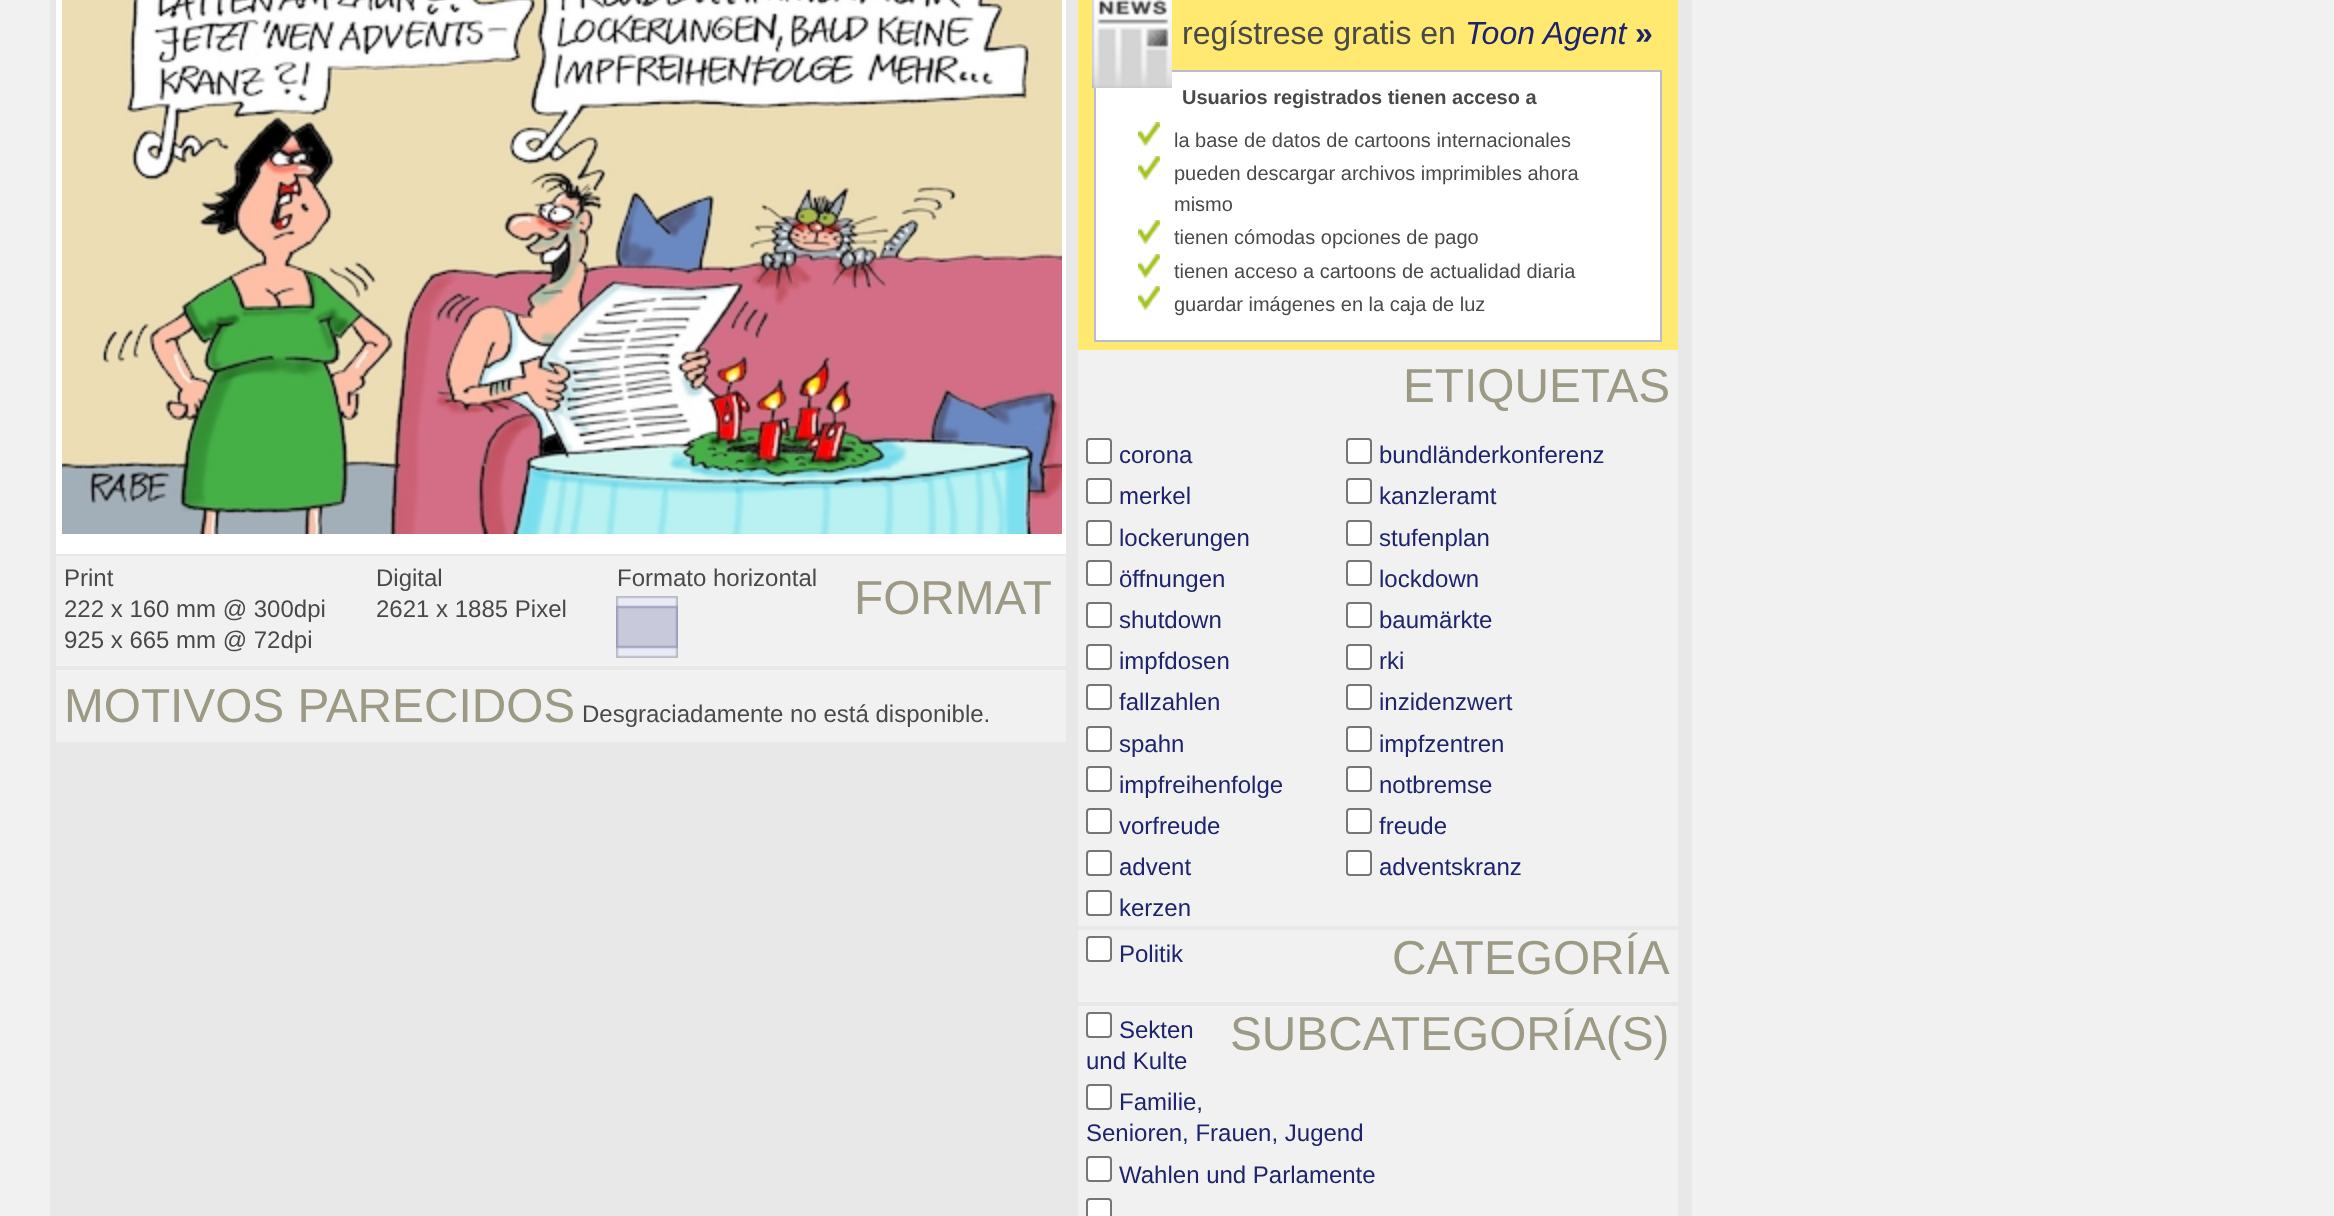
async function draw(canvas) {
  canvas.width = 2334;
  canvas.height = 1216;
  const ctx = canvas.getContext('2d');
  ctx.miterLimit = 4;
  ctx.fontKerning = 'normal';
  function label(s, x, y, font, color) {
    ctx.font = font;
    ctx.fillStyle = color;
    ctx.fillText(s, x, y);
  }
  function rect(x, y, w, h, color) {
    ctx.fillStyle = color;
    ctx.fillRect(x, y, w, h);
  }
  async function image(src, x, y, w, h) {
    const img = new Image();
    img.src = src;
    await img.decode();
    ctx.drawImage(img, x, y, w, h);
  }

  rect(0, 0, 2334, 1216, '#f1f1f1');
  rect(50, 0, 1642, 1216, '#e8e8e8');
  rect(56, 0, 1010, 554, '#fff');
  await image('assets/img1.png', 62, 0, 1000, 534);
  rect(56, 556, 1010, 110, '#f1f1f1');
  label('Print', 64, 586, '24px Liberation Sans', '#494949');
  label('222 x 160 mm @ 300dpi', 64, 617, '24px Liberation Sans', '#494949');
  label('925 x 665 mm @ 72dpi', 64, 648, '24px Liberation Sans', '#494949');
  label('Digital', 376, 586, '24px Liberation Sans', '#494949');
  label('2621 x 1885 Pixel', 376, 617, '24px Liberation Sans', '#494949');
  label('Formato horizontal', 617, 586, '24px Liberation Sans', '#494949');
  await image('assets/img2.png', 616, 596, 62, 62);
  label('FORMAT', 854, 614, '47.75px Liberation Sans', '#9c9984');
  rect(56, 670, 1010, 72, '#f1f1f1');
  label('MOTIVOS PARECIDOS', 64, 722, '47.75px Liberation Sans', '#9c9984');
  label('Desgraciadamente no está disponible.', 582, 722, '24px Liberation Sans', '#494949');
  rect(1078, 0, 600, 350, '#ffe970');
  ctx.fillStyle = '#fff';
  ctx.beginPath();
  ctx.rect(1095, 71, 566, 270);
  ctx.fill();
  ctx.strokeStyle = '#b9bbd0';
  ctx.lineWidth = 2;
  ctx.stroke();
  await image('assets/img3.png', 1092, 0, 80, 88);
  label('regístrese gratis en', 1182, 44, '32px Liberation Sans', '#494949');
  label('Toon Agent', 1465, 44, 'italic 32px Liberation Sans', '#1d246c');
  label('»', 1635, 44, 'bold 32px Liberation Sans', '#1d246c');
  label('Usuarios registrados tienen acceso a', 1182, 104, 'bold 20px Liberation Sans', '#494949');
  await image('assets/img4.png', 1138, 122, 22, 24);
  label('la base de datos de cartoons internacionales', 1174, 147, '20px Liberation Sans', '#494949');
  await image('assets/img4.png', 1138, 156, 22, 24);
  label('pueden descargar archivos imprimibles ahora', 1174, 180, '20px Liberation Sans', '#494949');
  label('mismo', 1174, 211, '20px Liberation Sans', '#494949');
  await image('assets/img4.png', 1138, 220, 22, 24);
  label('tienen cómodas opciones de pago', 1174, 244, '20px Liberation Sans', '#494949');
  await image('assets/img4.png', 1138, 254, 22, 24);
  label('tienen acceso a cartoons de actualidad diaria', 1174, 278, '20px Liberation Sans', '#494949');
  await image('assets/img4.png', 1138, 286, 22, 24);
  label('guardar imágenes en la caja de luz', 1174, 311, '20px Liberation Sans', '#494949');
  rect(1078, 350, 600, 866, '#f1f1f1');
  label('ETIQUETAS', 1403, 402, '47.75px Liberation Sans', '#9c9984');
  ctx.fillStyle = '#fff';
  ctx.beginPath();
  ctx.roundRect(1087, 439, 24, 24, 3);
  ctx.fill();
  ctx.strokeStyle = '#767676';
  ctx.stroke();
  label('corona', 1119, 463, '24px Liberation Sans', '#1d246c');
  ctx.fillStyle = '#fff';
  ctx.beginPath();
  ctx.roundRect(1347, 439, 24, 24, 3);
  ctx.fill();
  ctx.stroke();
  label('bundländerkonferenz', 1379, 463, '24px Liberation Sans', '#1d246c');
  ctx.fillStyle = '#fff';
  ctx.beginPath();
  ctx.roundRect(1087, 479, 24, 24, 3);
  ctx.fill();
  ctx.stroke();
  label('merkel', 1119, 504, '24px Liberation Sans', '#1d246c');
  ctx.fillStyle = '#fff';
  ctx.beginPath();
  ctx.roundRect(1347, 479, 24, 24, 3);
  ctx.fill();
  ctx.stroke();
  label('kanzleramt', 1379, 504, '24px Liberation Sans', '#1d246c');
  ctx.fillStyle = '#fff';
  ctx.beginPath();
  ctx.roundRect(1087, 521, 24, 24, 3);
  ctx.fill();
  ctx.stroke();
  label('lockerungen', 1119, 546, '24px Liberation Sans', '#1d246c');
  ctx.fillStyle = '#fff';
  ctx.beginPath();
  ctx.roundRect(1347, 521, 24, 24, 3);
  ctx.fill();
  ctx.stroke();
  label('stufenplan', 1379, 546, '24px Liberation Sans', '#1d246c');
  ctx.fillStyle = '#fff';
  ctx.beginPath();
  ctx.roundRect(1087, 561, 24, 24, 3);
  ctx.fill();
  ctx.stroke();
  label('öffnungen', 1119, 587, '24px Liberation Sans', '#1d246c');
  ctx.fillStyle = '#fff';
  ctx.beginPath();
  ctx.roundRect(1347, 561, 24, 24, 3);
  ctx.fill();
  ctx.stroke();
  label('lockdown', 1379, 587, '24px Liberation Sans', '#1d246c');
  ctx.fillStyle = '#fff';
  ctx.beginPath();
  ctx.roundRect(1087, 603, 24, 24, 3);
  ctx.fill();
  ctx.stroke();
  label('shutdown', 1119, 628, '24px Liberation Sans', '#1d246c');
  ctx.fillStyle = '#fff';
  ctx.beginPath();
  ctx.roundRect(1347, 603, 24, 24, 3);
  ctx.fill();
  ctx.stroke();
  label('baumärkte', 1379, 628, '24px Liberation Sans', '#1d246c');
  ctx.fillStyle = '#fff';
  ctx.beginPath();
  ctx.roundRect(1087, 645, 24, 24, 3);
  ctx.fill();
  ctx.stroke();
  label('impfdosen', 1119, 669, '24px Liberation Sans', '#1d246c');
  ctx.fillStyle = '#fff';
  ctx.beginPath();
  ctx.roundRect(1347, 645, 24, 24, 3);
  ctx.fill();
  ctx.stroke();
  label('rki', 1379, 669, '24px Liberation Sans', '#1d246c');
  ctx.fillStyle = '#fff';
  ctx.beginPath();
  ctx.roundRect(1087, 685, 24, 24, 3);
  ctx.fill();
  ctx.stroke();
  label('fallzahlen', 1119, 710, '24px Liberation Sans', '#1d246c');
  ctx.fillStyle = '#fff';
  ctx.beginPath();
  ctx.roundRect(1347, 685, 24, 24, 3);
  ctx.fill();
  ctx.stroke();
  label('inzidenzwert', 1379, 710, '24px Liberation Sans', '#1d246c');
  ctx.fillStyle = '#fff';
  ctx.beginPath();
  ctx.roundRect(1087, 727, 24, 24, 3);
  ctx.fill();
  ctx.stroke();
  label('spahn', 1119, 752, '24px Liberation Sans', '#1d246c');
  ctx.fillStyle = '#fff';
  ctx.beginPath();
  ctx.roundRect(1347, 727, 24, 24, 3);
  ctx.fill();
  ctx.stroke();
  label('impfzentren', 1379, 752, '24px Liberation Sans', '#1d246c');
  ctx.fillStyle = '#fff';
  ctx.beginPath();
  ctx.roundRect(1087, 767, 24, 24, 3);
  ctx.fill();
  ctx.stroke();
  label('impfreihenfolge', 1119, 793, '24px Liberation Sans', '#1d246c');
  ctx.fillStyle = '#fff';
  ctx.beginPath();
  ctx.roundRect(1347, 767, 24, 24, 3);
  ctx.fill();
  ctx.stroke();
  label('notbremse', 1379, 793, '24px Liberation Sans', '#1d246c');
  ctx.fillStyle = '#fff';
  ctx.beginPath();
  ctx.roundRect(1087, 809, 24, 24, 3);
  ctx.fill();
  ctx.stroke();
  label('vorfreude', 1119, 834, '24px Liberation Sans', '#1d246c');
  ctx.fillStyle = '#fff';
  ctx.beginPath();
  ctx.roundRect(1347, 809, 24, 24, 3);
  ctx.fill();
  ctx.stroke();
  label('freude', 1379, 834, '24px Liberation Sans', '#1d246c');
  ctx.fillStyle = '#fff';
  ctx.beginPath();
  ctx.roundRect(1087, 851, 24, 24, 3);
  ctx.fill();
  ctx.stroke();
  label('advent', 1119, 875, '24px Liberation Sans', '#1d246c');
  ctx.fillStyle = '#fff';
  ctx.beginPath();
  ctx.roundRect(1347, 851, 24, 24, 3);
  ctx.fill();
  ctx.stroke();
  label('adventskranz', 1379, 875, '24px Liberation Sans', '#1d246c');
  ctx.fillStyle = '#fff';
  ctx.beginPath();
  ctx.roundRect(1087, 891, 24, 24, 3);
  ctx.fill();
  ctx.stroke();
  label('kerzen', 1119, 916, '24px Liberation Sans', '#1d246c');
  rect(1078, 926, 600, 4, '#e8e8e8');
  ctx.fillStyle = '#fff';
  ctx.beginPath();
  ctx.roundRect(1087, 937, 24, 24, 3);
  ctx.fill();
  ctx.stroke();
  label('Politik', 1119, 962, '24px Liberation Sans', '#1d246c');
  label('CATEGORÍA', 1392, 974, '47.75px Liberation Sans', '#9c9984');
  rect(1078, 1002, 600, 4, '#e8e8e8');
  ctx.fillStyle = '#fff';
  ctx.beginPath();
  ctx.roundRect(1087, 1013, 24, 24, 3);
  ctx.fill();
  ctx.stroke();
  label('Sekten', 1119, 1038, '24px Liberation Sans', '#1d246c');
  label('SUBCATEGORÍA(S)', 1230, 1050, '47.75px Liberation Sans', '#9c9984');
  label('und Kulte', 1086, 1069, '24px Liberation Sans', '#1d246c');
  ctx.fillStyle = '#fff';
  ctx.beginPath();
  ctx.roundRect(1087, 1085, 24, 24, 3);
  ctx.fill();
  ctx.stroke();
  label('Familie,', 1119, 1110, '24px Liberation Sans', '#1d246c');
  label('Senioren, Frauen, Jugend', 1086, 1141, '24px Liberation Sans', '#1d246c');
  ctx.fillStyle = '#fff';
  ctx.beginPath();
  ctx.roundRect(1087, 1157, 24, 24, 3);
  ctx.fill();
  ctx.stroke();
  label('Wahlen und Parlamente', 1119, 1183, '24px Liberation Sans', '#1d246c');
  ctx.fillStyle = '#fff';
  ctx.beginPath();
  ctx.roundRect(1087, 1199, 24, 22, 3);
  ctx.fill();
  ctx.stroke();
}

draw(document.querySelector('canvas'));
